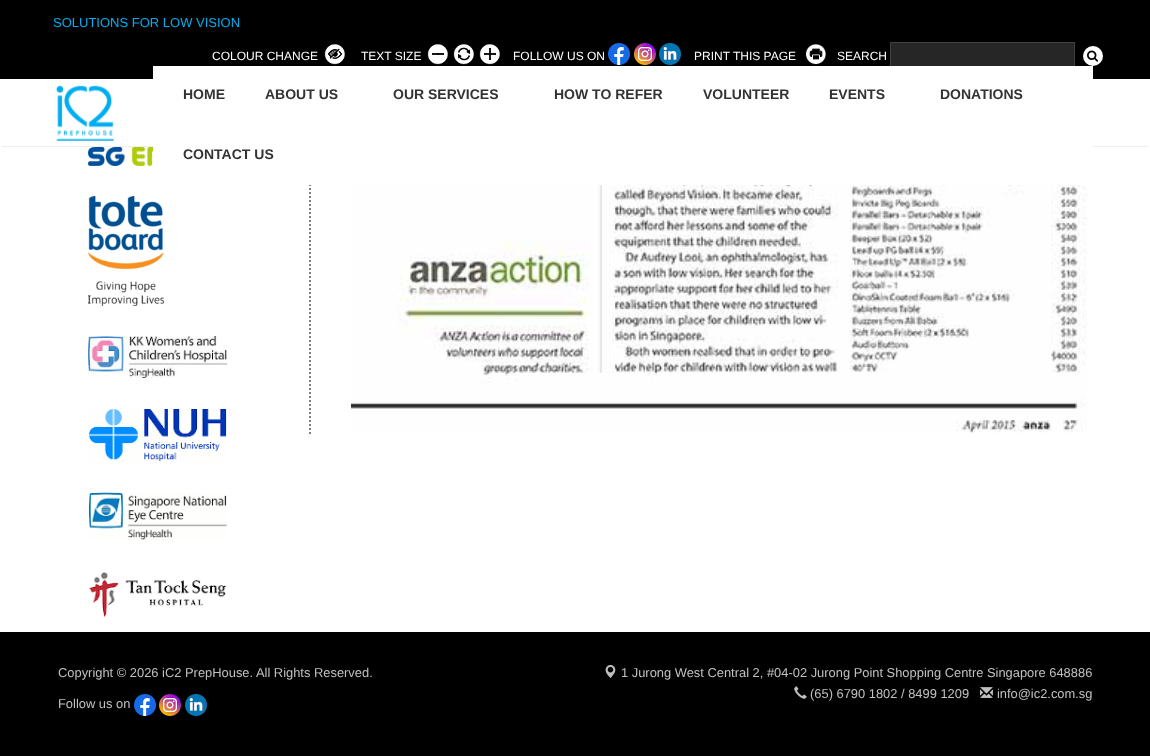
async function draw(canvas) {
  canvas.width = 1150;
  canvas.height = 756;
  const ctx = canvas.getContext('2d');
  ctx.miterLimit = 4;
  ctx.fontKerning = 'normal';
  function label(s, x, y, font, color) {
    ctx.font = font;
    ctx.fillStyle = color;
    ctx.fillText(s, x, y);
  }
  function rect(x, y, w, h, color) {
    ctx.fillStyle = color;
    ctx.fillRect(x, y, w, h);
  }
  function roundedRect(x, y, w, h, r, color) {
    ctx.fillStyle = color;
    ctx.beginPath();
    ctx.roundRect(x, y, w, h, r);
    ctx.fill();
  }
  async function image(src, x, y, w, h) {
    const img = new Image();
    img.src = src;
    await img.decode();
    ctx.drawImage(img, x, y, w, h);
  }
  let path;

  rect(0, 0, 1150, 756, '#fff');
  await image('assets/img1.png', 88, 147, 65, 19);
  await image('assets/img2.png', 88, 196, 76, 110);
  await image('assets/img3.png', 88, 336, 139, 42);
  await image('assets/img4.png', 89, 408, 138, 54);
  await image('assets/img5.png', 88, 492, 139, 48);
  await image('assets/img6.png', 89, 572, 138, 45);
  path = new Path2D('M310-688V435');
  ctx.strokeStyle = '#808080';
  ctx.lineWidth = 2;
  ctx.setLineDash([2, 2]);
  ctx.stroke(path);
  await image('assets/img7.png', 351, 185, 736, 248);
  rect(309, 80, 2, 2, '#fff');
  rect(0, 0, 1150, 79, '#000');
  label('SOLUTIONS FOR LOW VISION', 53, 27, '13px Liberation Sans', '#00aeef');
  label('COLOUR CHANGE', 212, 60, '12px Liberation Sans', '#fff');
  await image('assets/img8.png', 324, 44, 21, 21);
  label('TEXT SIZE', 361, 60, '12px Liberation Sans', '#fff');
  await image('assets/img9.png', 427, 44, 21, 21);
  await image('assets/img10.png', 453, 44, 21, 21);
  await image('assets/img11.png', 479, 44, 21, 21);
  label('FOLLOW US ON', 513, 60, '12px Liberation Sans', '#fff');
  await image('assets/img12.png', 608, 43, 22, 22);
  await image('assets/img13.png', 634, 43, 22, 22);
  await image('assets/img14.png', 659, 43, 22, 22);
  label('PRINT THIS PAGE', 694, 60, '12px Liberation Sans', '#fff');
  await image('assets/img15.png', 805, 44, 21, 21);
  label('SEARCH', 837, 60, '12px Liberation Sans', '#fff');
  rect(891, 43, 183, 23, '#262626');
  ctx.strokeStyle = '#404040';
  ctx.lineWidth = 1;
  ctx.setLineDash([]);
  ctx.strokeRect(890.5, 42.5, 184, 28);
  ctx.fillStyle = '#fff';
  ctx.beginPath();
  ctx.arc(1093, 56, 10, 0, 2 * Math.PI);
  ctx.fill();
  await image('assets/img16.png', 1087, 50, 12, 12);
  roundedRect(0, 79, 1150, 68, 4, '#fff');
  rect(2, 146, 1146, 1, '#eee');
  await image('assets/img17.png', 56, 85, 58, 56);
  rect(153, 66, 940, 119, '#fff');
  label('HOME', 183, 99, 'bold 14px Liberation Sans', '#333');
  label('ABOUT US', 265, 99, 'bold 14px Liberation Sans', '#333');
  label('OUR SERVICES', 393, 99, 'bold 14px Liberation Sans', '#333');
  label('HOW TO REFER', 554, 99, 'bold 14px Liberation Sans', '#333');
  label('VOLUNTEER', 703, 99, 'bold 14px Liberation Sans', '#333');
  label('EVENTS', 829, 99, 'bold 14px Liberation Sans', '#333');
  label('DONATIONS', 940, 99, 'bold 14px Liberation Sans', '#333');
  label('CONTACT US', 183, 159, 'bold 14px Liberation Sans', '#333');
  rect(0, 632, 1150, 124, '#000');
  label('Copyright © 2026 iC2 PrepHouse. All Rights Reserved.', 58, 677, '12.9px Liberation Sans', '#c0c0c0');
  label('Follow us on', 58, 708, '12.9px Liberation Sans', '#c0c0c0');
  await image('assets/img12.png', 134, 694, 22, 22);
  await image('assets/img13.png', 159, 694, 22, 22);
  await image('assets/img14.png', 185, 694, 22, 22);
  await image('assets/img18.png', 605, 664, 11, 14);
  label('1 Jurong West Central 2, #04-02 Jurong Point Shopping Centre Singapore 648886', 621, 677, '12.9px Liberation Sans', '#c0c0c0');
  await image('assets/img19.png', 794, 686, 13, 13);
  label('(65) 6790 1802 / 8499 1209', 810, 698, '12.9px Liberation Sans', '#c0c0c0');
  await image('assets/img20.png', 980, 687, 13, 11);
  label('info@ic2.com.sg', 997, 698, '12.9px Liberation Sans', '#c0c0c0');
}

draw(document.querySelector('canvas'));
